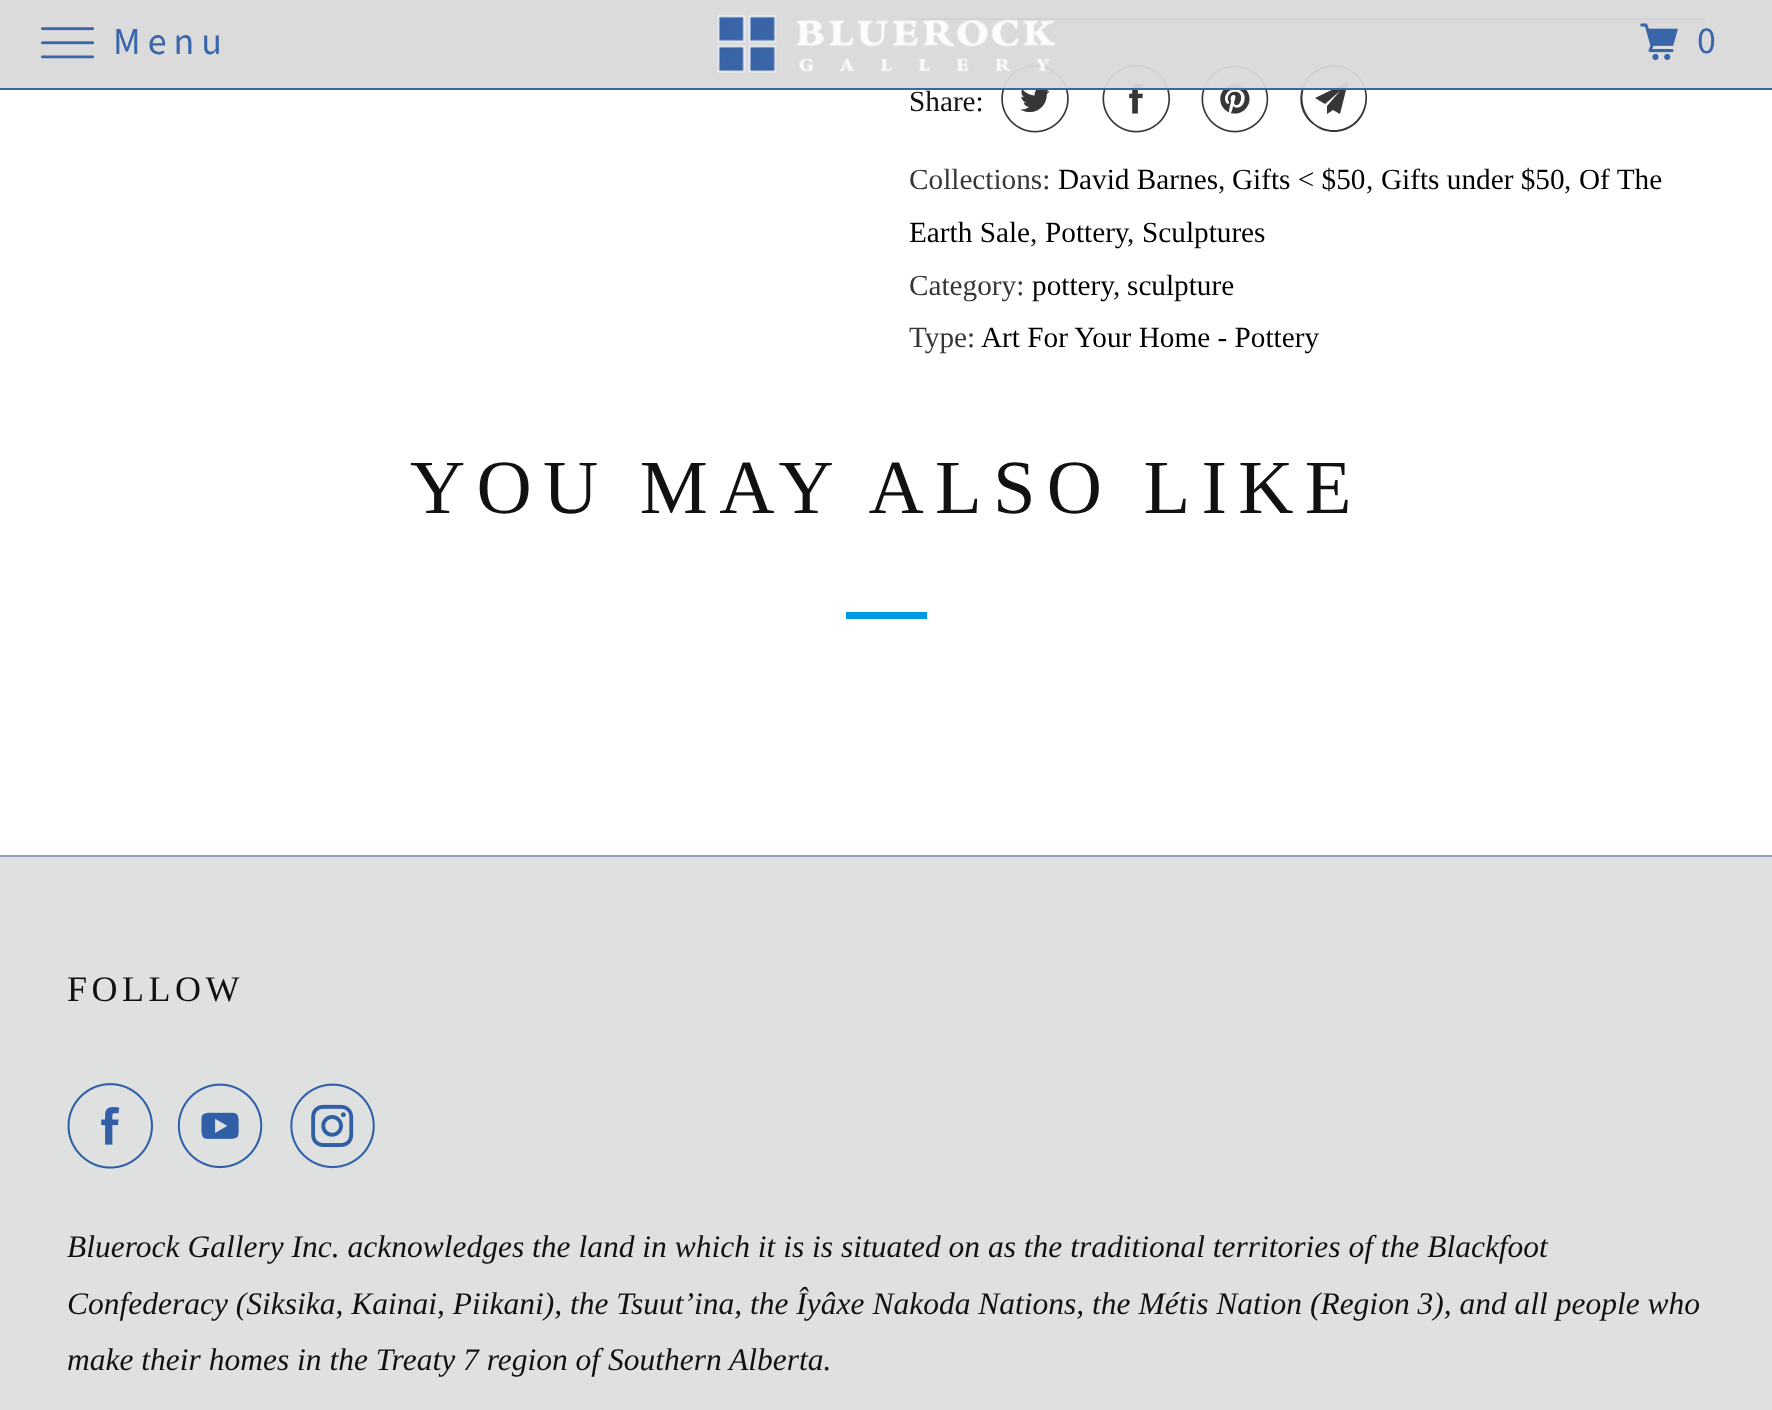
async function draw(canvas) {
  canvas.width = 1772;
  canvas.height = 1410;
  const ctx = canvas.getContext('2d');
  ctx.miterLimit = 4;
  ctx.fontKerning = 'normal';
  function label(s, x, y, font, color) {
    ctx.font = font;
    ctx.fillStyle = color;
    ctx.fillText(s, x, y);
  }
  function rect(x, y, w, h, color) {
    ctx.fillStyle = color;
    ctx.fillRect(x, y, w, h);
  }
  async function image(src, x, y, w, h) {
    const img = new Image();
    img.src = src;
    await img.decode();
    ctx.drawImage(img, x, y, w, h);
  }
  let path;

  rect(0, 0, 1772, 1410, '#fff');
  rect(909, 18, 797, 2, '#305fa7');
  await image('assets/img4.png', 1001, 65, 68, 68);
  await image('assets/img5.png', 1102, 65, 68, 68);
  await image('assets/img6.png', 1201, 65, 68, 68);
  ctx.fillStyle = '#363636';
  path = new Path2D('M1340 114L1333 110L1327 114V106L1340 91L1325 104L1315 98L1348 82ZM1334 67C1327 67 1320 69 1315 73C1291 91 1304 130 1334 130C1364 130 1377 91 1353 73C1347 69 1341 67 1334 67ZM1334 132C1327 132 1320 130 1314 125C1288 106 1302 65 1334 65C1341 65 1348 68 1354 72C1379 91 1366 132 1334 132Z');
  ctx.fill(path);
  rect(0, 0, 1772, 90, '#d9d9d9f2');
  rect(0, 88, 1772, 2, '#305fa7f2');
  await image('assets/img1.png', 40, 27, 55, 32);
  ctx.letterSpacing = '7px';
  label('Menu', 113, 54, '38px Source Sans Pro', '#3a67ab');
  await image('assets/img2.png', 717, 15, 339, 58);
  await image('assets/img3.png', 1640, 23, 38, 38);
  label('0', 1697, 53, '38px Source Sans Pro', '#3a67ab');
  ctx.letterSpacing = '0px';
  label('Share:', 909, 111, '29.25px Liberation Serif', '#111');
  label('Collections:', 909, 189, '29.25px Liberation Serif', '#363636');
  label('David Barnes', 1058, 189, '29.25px Liberation Serif', '#000');
  label(',', 1218, 189, '29.25px Liberation Serif', '#111');
  label('Gifts < $50', 1232, 189, '29.25px Liberation Serif', '#000');
  label(',', 1366, 189, '29.25px Liberation Serif', '#111');
  label('Gifts under $50', 1381, 189, '29.25px Liberation Serif', '#000');
  label(',', 1564, 189, '29.25px Liberation Serif', '#111');
  label('Of The', 1579, 189, '29.25px Liberation Serif', '#000');
  label('Earth Sale', 909, 242, '29.25px Liberation Serif', '#000');
  label(',', 1030, 242, '29.25px Liberation Serif', '#111');
  label('Pottery', 1045, 242, '29.25px Liberation Serif', '#000');
  label(',', 1127, 242, '29.25px Liberation Serif', '#111');
  label('Sculptures', 1142, 242, '29.25px Liberation Serif', '#000');
  label('Category:', 909, 295, '29.25px Liberation Serif', '#363636');
  label('pottery', 1032, 295, '29.25px Liberation Serif', '#000');
  label(',', 1113, 295, '29.25px Liberation Serif', '#111');
  label('sculpture', 1127, 295, '29.25px Liberation Serif', '#000');
  label('Type:', 909, 347, '29.25px Liberation Serif', '#363636');
  label('Art For Your Home - Pottery', 981, 347, '29.25px Liberation Serif', '#000');
  ctx.letterSpacing = '11.25px';
  label('YOU MAY ALSO LIKE', 410, 513, '76.5px Liberation Serif', '#111');
  rect(846, 612, 81, 7, '#0099e5');
  rect(0, 857, 1772, 553, '#dfe1e1');
  rect(0, 855, 1772, 2, '#8b9ebd');
  ctx.letterSpacing = '4.5px';
  label('FOLLOW', 67, 1001, '36px Liberation Serif', '#111');
  await image('assets/img7.png', 67, 1083, 86, 86);
  await image('assets/img8.png', 177, 1083, 86, 86);
  await image('assets/img9.png', 290, 1083, 85, 86);
  ctx.letterSpacing = '0px';
  label('Bluerock Gallery Inc. acknowledges the land in which it is is situated on as the traditional territories of the Blackfoot', 67, 1257, 'italic 31.5px Liberation Serif', '#111');
  label('Confederacy (Siksika, Kainai, Piikani), the Tsuut’ina, the Îyâxe Nakoda Nations, the Métis Nation (Region 3), and all people who', 67, 1314, 'italic 31.5px Liberation Serif', '#111');
  label('make their homes in the Treaty 7 region of Southern Alberta.', 67, 1370, 'italic 31.5px Liberation Serif', '#111');
}

draw(document.querySelector('canvas'));
